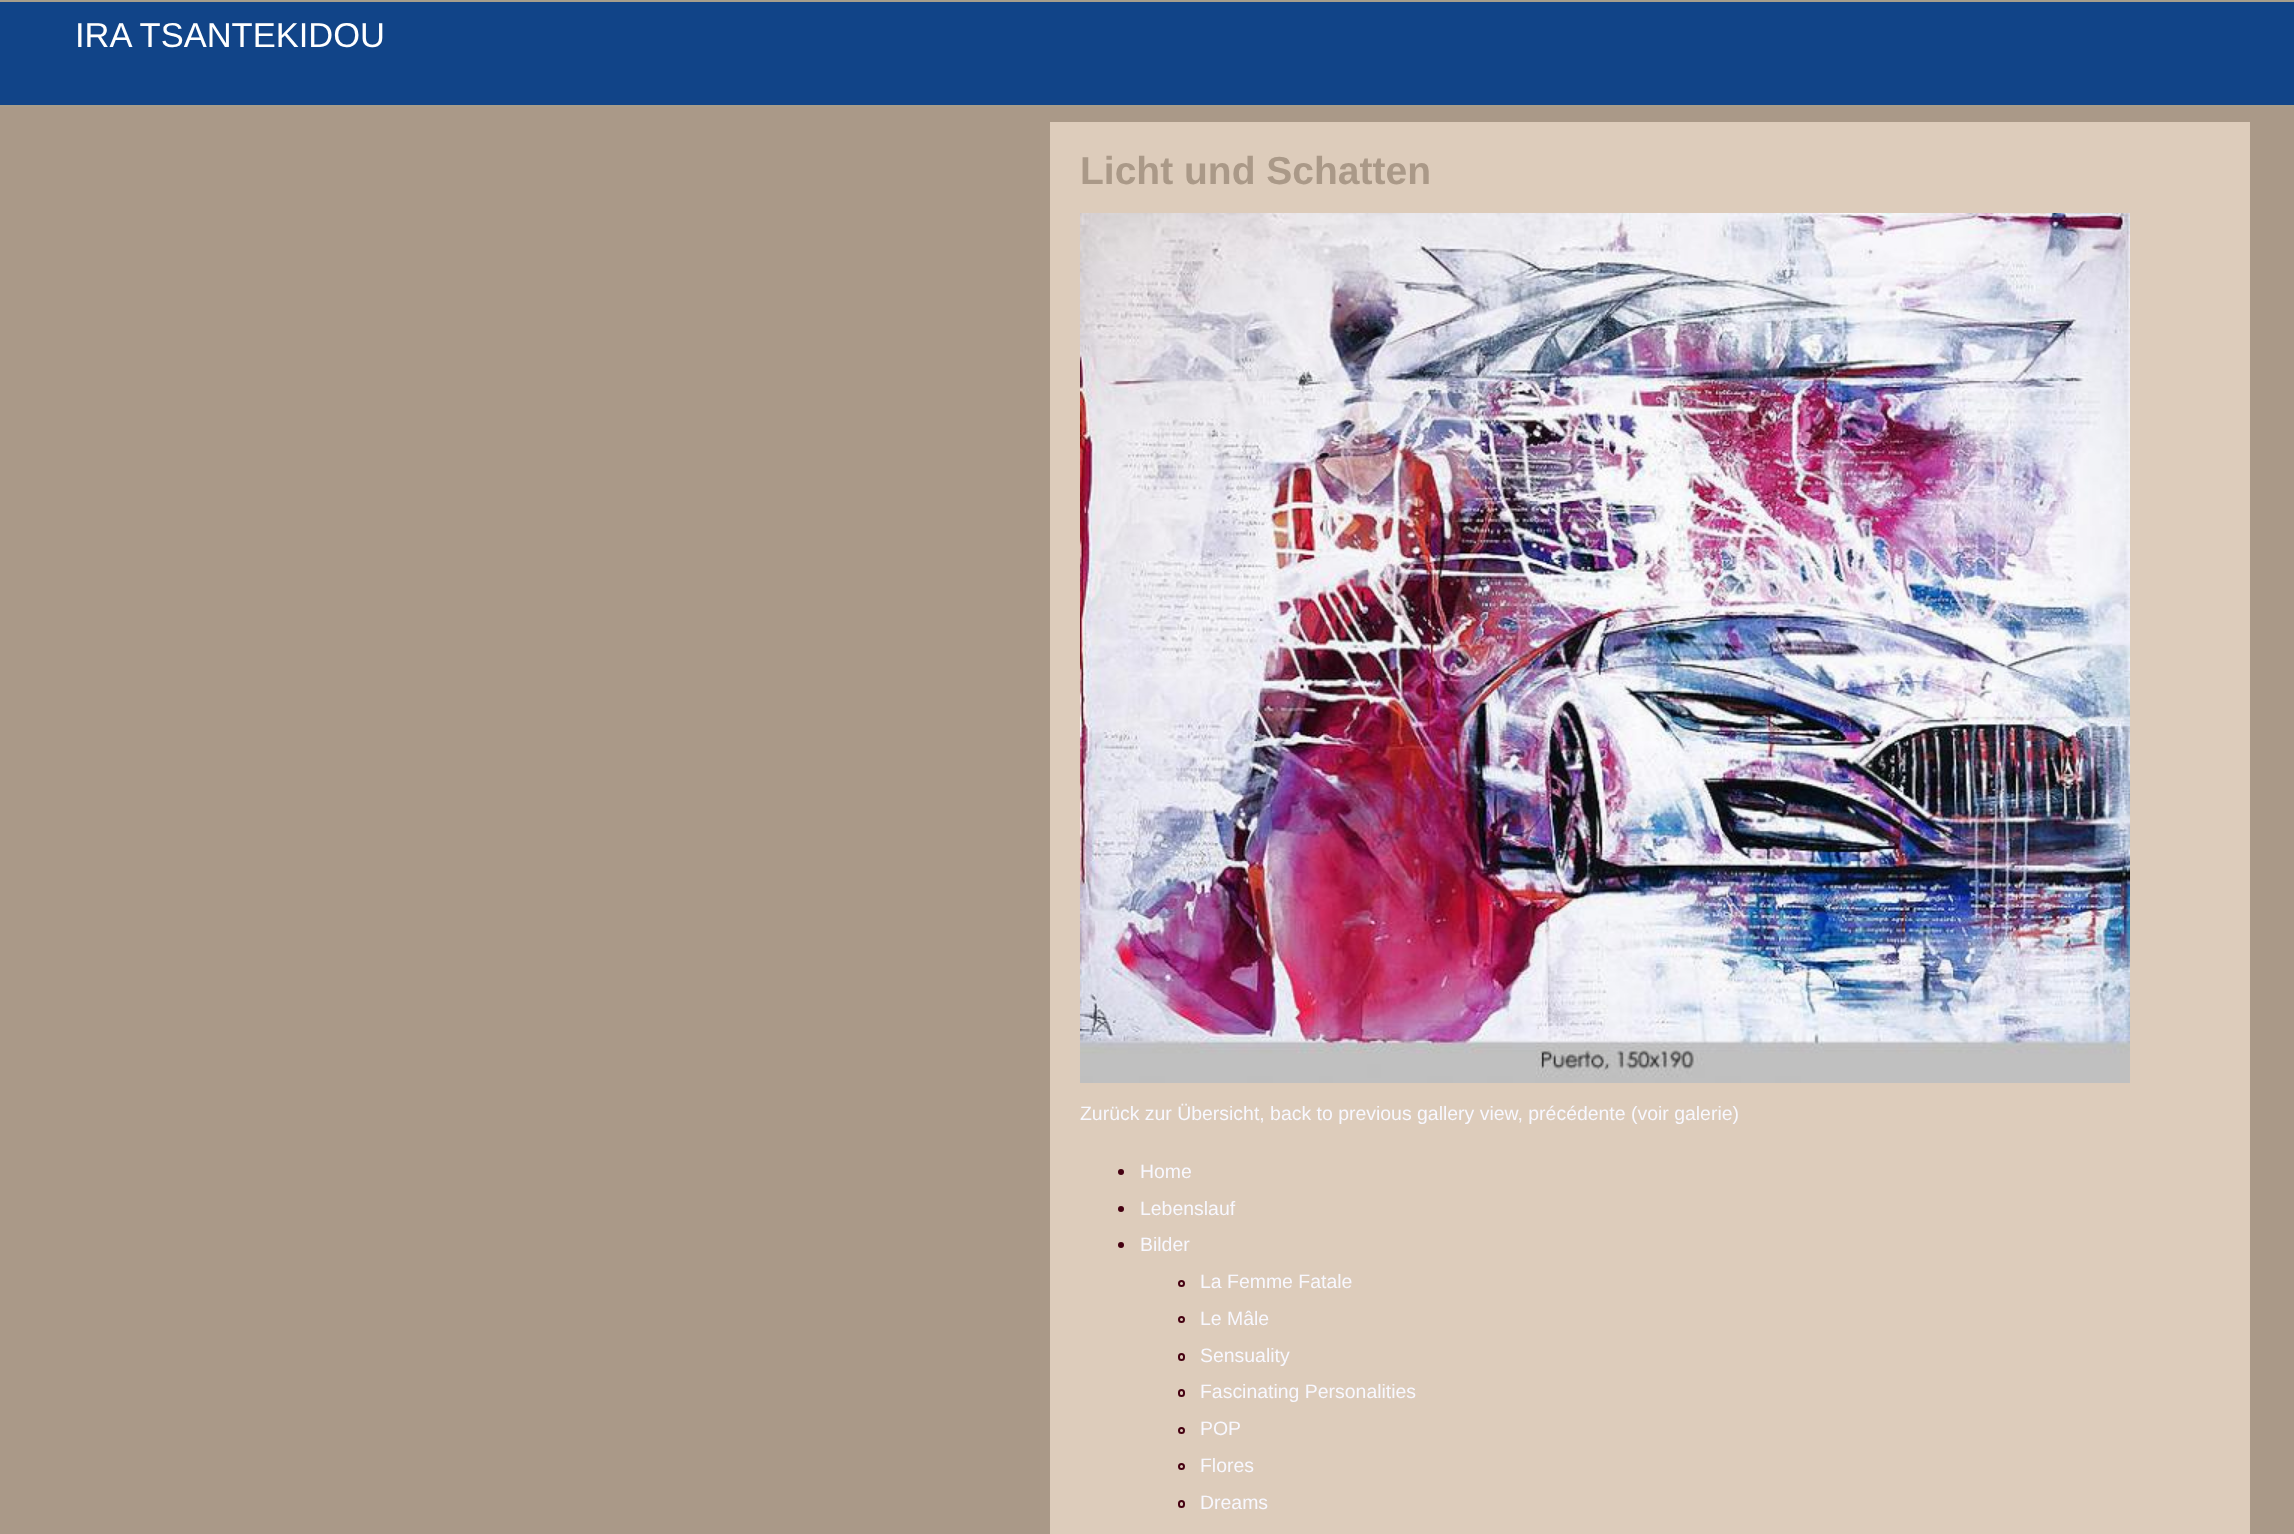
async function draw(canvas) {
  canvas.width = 2294;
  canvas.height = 1534;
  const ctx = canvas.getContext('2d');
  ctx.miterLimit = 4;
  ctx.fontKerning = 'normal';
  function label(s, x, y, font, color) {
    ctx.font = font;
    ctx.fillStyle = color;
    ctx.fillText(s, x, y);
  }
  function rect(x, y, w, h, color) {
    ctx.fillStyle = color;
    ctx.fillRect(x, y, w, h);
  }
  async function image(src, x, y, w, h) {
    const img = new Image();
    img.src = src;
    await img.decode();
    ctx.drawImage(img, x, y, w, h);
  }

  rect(0, 0, 2294, 1534, '#a98');
  rect(0, 2, 2294, 103, '#148');
  rect(0, 0, 2294, 2, '#a79e8c');
  rect(0, 105, 2294, 2, '#a79e8c');
  label('IRA TSANTEKIDOU', 75, 47, '34.5px Liberation Sans', '#fff');
  rect(1050, 122, 1200, 1412, '#dcb');
  label('Licht und Schatten', 1080, 184, 'bold 39px Liberation Sans', '#a98');
  await image('assets/img1.png', 1080, 213, 1050, 870);
  label('Zurück zur Übersicht, back to previous gallery view, précédente (voir galerie)', 1080, 1120, '19.45px Liberation Sans', '#f8f8ff');
  ctx.fillStyle = '#401';
  ctx.beginPath();
  ctx.arc(1121, 1172, 3, 0, 2 * Math.PI);
  ctx.fill();
  label('Home', 1140, 1178, '19.45px Liberation Sans', '#f8f8ff');
  ctx.fillStyle = '#401';
  ctx.beginPath();
  ctx.arc(1121, 1209, 3, 0, 2 * Math.PI);
  ctx.fill();
  label('Lebenslauf', 1140, 1215, '19.45px Liberation Sans', '#f8f8ff');
  ctx.fillStyle = '#401';
  ctx.beginPath();
  ctx.arc(1121, 1245, 3, 0, 2 * Math.PI);
  ctx.fill();
  label('Bilder', 1140, 1251, '19.45px Liberation Sans', '#f8f8ff');
  ctx.beginPath();
  ctx.arc(1181.5, 1283.5, 2.5, 0, 2 * Math.PI);
  ctx.strokeStyle = '#401';
  ctx.lineWidth = 2;
  ctx.stroke();
  label('La Femme Fatale', 1200, 1288, '19.45px Liberation Sans', '#f8f8ff');
  ctx.beginPath();
  ctx.arc(1181.5, 1319.5, 2.5, 0, 2 * Math.PI);
  ctx.stroke();
  label('Le Mâle', 1200, 1325, '19.45px Liberation Sans', '#f8f8ff');
  ctx.beginPath();
  ctx.roundRect(1179, 1354, 5, 6, 2.5);
  ctx.stroke();
  label('Sensuality', 1200, 1362, '19.45px Liberation Sans', '#f8f8ff');
  ctx.beginPath();
  ctx.roundRect(1179, 1390, 5, 6, 2.5);
  ctx.stroke();
  label('Fascinating Personalities', 1200, 1398, '19.45px Liberation Sans', '#f8f8ff');
  ctx.beginPath();
  ctx.arc(1181.5, 1430.5, 2.5, 0, 2 * Math.PI);
  ctx.stroke();
  label('POP', 1200, 1435, '19.45px Liberation Sans', '#f8f8ff');
  ctx.beginPath();
  ctx.arc(1181.5, 1466.5, 2.5, 0, 2 * Math.PI);
  ctx.stroke();
  label('Flores', 1200, 1472, '19.45px Liberation Sans', '#f8f8ff');
  ctx.beginPath();
  ctx.roundRect(1179, 1501, 5, 6, 2.5);
  ctx.stroke();
  label('Dreams', 1200, 1509, '19.45px Liberation Sans', '#f8f8ff');
}

draw(document.querySelector('canvas'));
